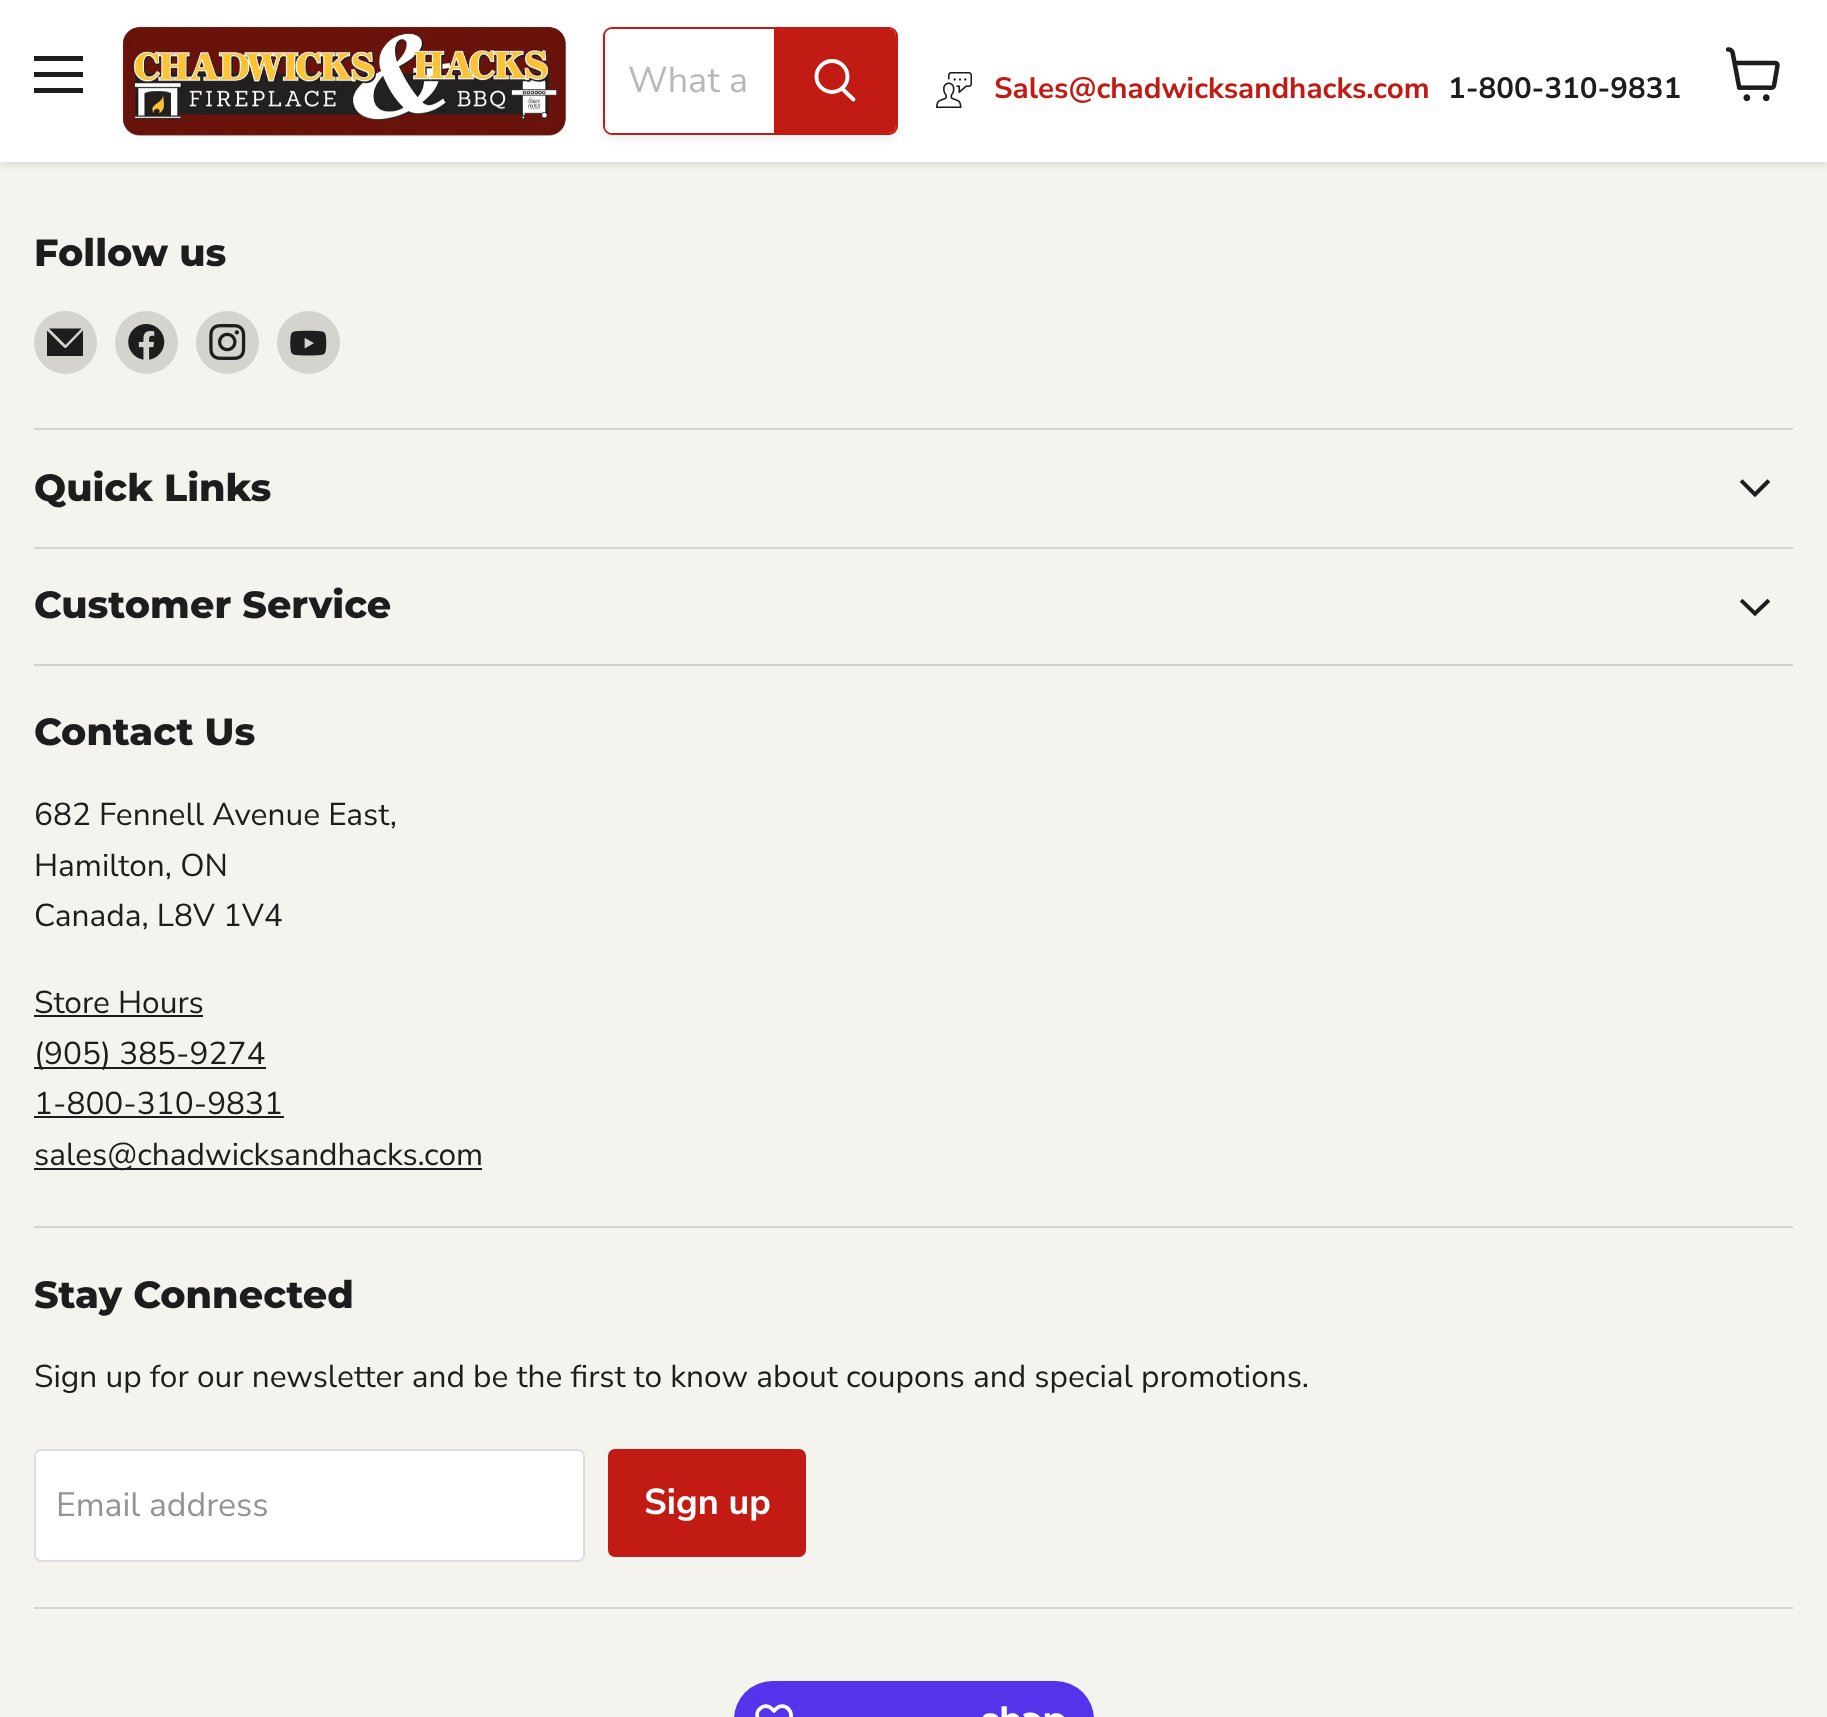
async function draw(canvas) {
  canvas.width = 1827;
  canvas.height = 1717;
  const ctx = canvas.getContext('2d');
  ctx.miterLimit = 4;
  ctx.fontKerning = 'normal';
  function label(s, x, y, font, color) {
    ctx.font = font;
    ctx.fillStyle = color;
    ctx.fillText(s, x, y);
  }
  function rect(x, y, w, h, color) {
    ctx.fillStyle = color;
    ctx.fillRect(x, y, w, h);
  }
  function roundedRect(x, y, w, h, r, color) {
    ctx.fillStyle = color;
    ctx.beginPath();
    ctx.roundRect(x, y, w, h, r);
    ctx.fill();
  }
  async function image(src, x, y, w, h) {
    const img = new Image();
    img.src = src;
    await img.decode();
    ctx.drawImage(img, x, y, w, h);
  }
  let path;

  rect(0, 0, 1827, 1717, '#f5f3ed');
  ctx.fillStyle = '#80808040';
  ctx.filter = 'blur(4.5px)';
  ctx.beginPath();
  ctx.rect(0, 2, 1827, 162);
  ctx.fill();
  ctx.filter = 'none';
  rect(0, 0, 1827, 162, '#fff');
  rect(34, 56, 49, 5, '#1d1d1d');
  rect(34, 72, 49, 5, '#1d1d1d');
  rect(34, 88, 49, 5, '#1d1d1d');
  await image('assets/img1.png', 119, 26, 448, 112);
  ctx.fillStyle = '#8080801c';
  ctx.filter = 'blur(3.5px)';
  ctx.beginPath();
  ctx.roundRect(603, 32, 295, 108, 9);
  ctx.fill();
  ctx.filter = 'none';
  ctx.beginPath();
  ctx.roundRect(604, 28, 293, 106, 8);
  ctx.strokeStyle = '#c21b14';
  ctx.lineWidth = 2;
  ctx.stroke();
  ctx.fillStyle = '#fff';
  ctx.beginPath();
  ctx.roundRect(605, 29, 169, 104, [7, 0, 0, 7]);
  ctx.fill();
  label('What a', 628, 92, '36px Nunito Sans', '#b8b8b8');
  ctx.fillStyle = '#c21b14';
  ctx.beginPath();
  ctx.roundRect(775, 30, 120, 102, [0, 6, 6, 0]);
  ctx.fill();
  ctx.stroke();
  path = new Path2D('M853.5 99.5L842.5 89');
  ctx.strokeStyle = '#fff';
  ctx.lineWidth = 3.9;
  ctx.lineCap = 'round';
  ctx.stroke(path);
  ctx.beginPath();
  ctx.arc(832, 76.5, 15.5, 0, 2 * Math.PI);
  ctx.stroke();
  await image('assets/img2.png', 936, 72, 36, 36);
  label('Sales@chadwicksandhacks.com', 994, 98, 'bold 29.5px Nunito Sans', '#c21b14');
  label('1-800-310-9831', 1448, 98, 'bold 29.5px Nunito Sans', '#1d1d1d');
  await image('assets/img3.png', 1726, 47, 54, 54);
  rect(34, 428, 1759, 2, '#d5d3ce');
  label('Follow us', 34, 266, '800 38px Montserrat', '#1d1d1d');
  ctx.fillStyle = '#d5d3ce';
  ctx.beginPath();
  ctx.arc(65.5, 342.5, 31.5, 0, 2 * Math.PI);
  ctx.fill();
  ctx.fillStyle = '#1d1d1d';
  path = new Path2D('M66.5 347.5C65 349.5 62 345 61.5 345L47 330.5V356H83V330.5Z');
  ctx.fill(path);
  path = new Path2D('M81.5 328.5H49L65.5 345Z');
  ctx.fill(path);
  ctx.fillStyle = '#d5d3ce';
  ctx.beginPath();
  ctx.arc(146.5, 342.5, 31.5, 0, 2 * Math.PI);
  ctx.fill();
  await image('assets/img4.png', 128, 324, 37, 36);
  ctx.beginPath();
  ctx.arc(227.5, 342.5, 31.5, 0, 2 * Math.PI);
  ctx.fill();
  await image('assets/img5.png', 209, 324, 37, 36);
  ctx.beginPath();
  ctx.arc(308.5, 342.5, 31.5, 0, 2 * Math.PI);
  ctx.fill();
  await image('assets/img6.png', 290, 330, 37, 26);
  rect(34, 547, 1759, 2, '#d5d3ce');
  label('Quick Links', 34, 501, '800 38px Montserrat', '#1d1d1d');
  path = new Path2D('M1755 494.5L1767.5 482M1755 494.5L1742.5 482');
  ctx.strokeStyle = '#1d1d1d';
  ctx.lineCap = 'square';
  ctx.stroke(path);
  rect(34, 664, 1759, 2, '#d5d3ce');
  label('Customer Service', 34, 618, '800 38px Montserrat', '#1d1d1d');
  path = new Path2D('M1755 613.5L1767.5 601.5M1755 613.5L1742.5 601.5');
  ctx.stroke(path);
  rect(34, 1226, 1759, 2, '#d5d3ce');
  label('Contact Us', 34, 745, '800 38px Montserrat', '#1d1d1d');
  label('682 Fennell Avenue East,', 34, 825, '31.65px Nunito Sans', '#1d1d1d');
  label('Hamilton, ON', 34, 876, '31.65px Nunito Sans', '#1d1d1d');
  label('Canada, L8V 1V4', 34, 926, '31.65px Nunito Sans', '#1d1d1d');
  label('Store Hours', 34, 1013, '31.65px Nunito Sans', '#1d1d1d');
  rect(34, 1015, 169, 2, '#1d1d1d');
  rect(34, 1067, 232, 2, '#1d1d1d');
  label('(905) 385-9274', 34, 1064, '31.65px Nunito Sans', '#1d1d1d');
  label('1-800-310-9831', 34, 1114, '31.65px Nunito Sans', '#1d1d1d');
  rect(34, 1116, 250, 2, '#1d1d1d');
  rect(34, 1168, 448, 2, '#1d1d1d');
  label('sales@chadwicksandhacks.com', 34, 1165, '31.65px Nunito Sans', '#1d1d1d');
  rect(34, 1607, 1759, 2, '#d5d3ce');
  label('Stay Connected', 34, 1308, '800 38px Montserrat', '#1d1d1d');
  label('Sign up for our newsletter and be the first to know about coupons and special promotions.', 34, 1387, '31.65px Nunito Sans', '#1d1d1d');
  ctx.fillStyle = '#fff';
  ctx.beginPath();
  ctx.roundRect(35, 1450, 549, 111, 6);
  ctx.fill();
  ctx.strokeStyle = '#ddd';
  ctx.lineWidth = 2;
  ctx.stroke();
  label('Email address', 56, 1516, '33.75px Nunito Sans', '#949494');
  ctx.fillStyle = '#c21b14';
  ctx.beginPath();
  ctx.roundRect(609, 1450, 196, 106, 6);
  ctx.fill();
  ctx.strokeStyle = '#c21b14';
  ctx.stroke();
  label('Sign up', 644, 1514, 'bold 36px Nunito Sans', '#fff');
  roundedRect(734, 1681, 360, 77, 40.5, '#5433eb');
  path = new Path2D('M772 1709L774 1711C775.5 1709 777 1707.5 779.5 1706.5C786.5 1704.5 793 1711.5 790.5 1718.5C789 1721.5 786 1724 783.5 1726.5L774 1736L764.5 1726.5C762 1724 759 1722 758 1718.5C754 1709.5 765.5 1702 772 1709Z');
  ctx.strokeStyle = '#fff';
  ctx.lineWidth = 3.8;
  ctx.lineCap = 'butt';
  ctx.lineJoin = 'round';
  ctx.stroke(path);
  await image('assets/img7.png', 982, 1706, 82, 11);
}

draw(document.querySelector('canvas'));
